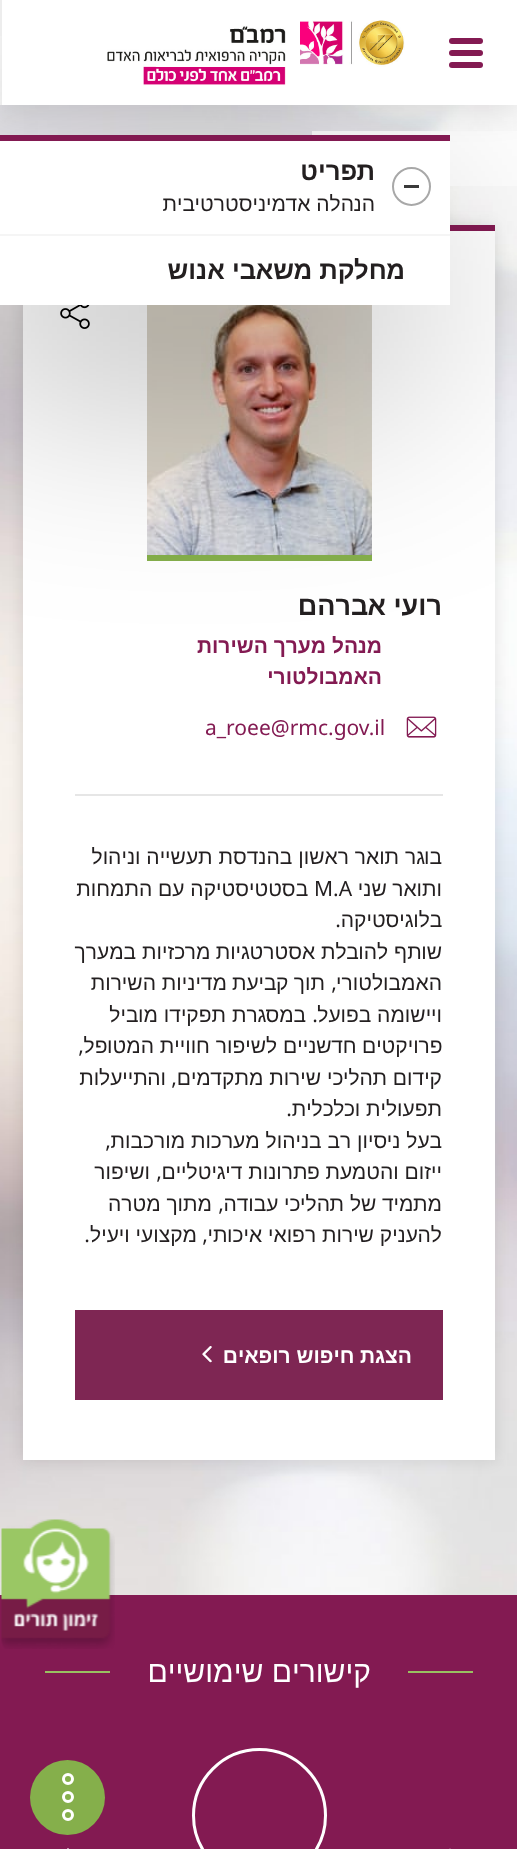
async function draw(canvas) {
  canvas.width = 517;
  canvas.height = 1849;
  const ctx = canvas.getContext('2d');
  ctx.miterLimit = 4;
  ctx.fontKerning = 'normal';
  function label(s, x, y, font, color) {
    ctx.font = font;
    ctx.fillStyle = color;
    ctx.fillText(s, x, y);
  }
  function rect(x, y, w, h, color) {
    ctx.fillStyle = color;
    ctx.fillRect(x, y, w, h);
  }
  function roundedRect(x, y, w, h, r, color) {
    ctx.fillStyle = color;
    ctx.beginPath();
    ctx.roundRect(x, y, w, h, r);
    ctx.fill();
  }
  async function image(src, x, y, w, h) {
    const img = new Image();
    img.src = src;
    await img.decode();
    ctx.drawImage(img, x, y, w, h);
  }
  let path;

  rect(0, 0, 517, 1849, '#fff');
  await image('assets/img1.png', 0, 105, 517, 1490);
  rect(502, 131, 15, 55, '#fff');
  rect(342, 131, 160, 55, '#fffffff2');
  rect(312, 131, 30, 4, '#fffffff2');
  ctx.fillStyle = '#0000001a';
  ctx.filter = 'blur(7.5px)';
  ctx.beginPath();
  ctx.rect(23, 225, 472, 1235);
  ctx.fill();
  ctx.filter = 'none';
  rect(23, 231, 472, 1229, '#fff');
  rect(450, 225, 45, 6, '#831a52');
  rect(147, 555, 225, 6, '#85af4b');
  await image('assets/img3.png', 147, 305, 225, 250);
  await image('assets/img4.png', 60, 305, 30, 24);
  await image('assets/img5.png', 406, 716, 31, 22);
  ctx.fillStyle = '#0000004d';
  ctx.filter = 'blur(112.5px)';
  ctx.beginPath();
  ctx.rect(-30, 210, 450, 170);
  ctx.fill();
  ctx.filter = 'none';
  rect(0, 135, 450, 6, '#831a52');
  rect(0, 141, 450, 93, '#fff');
  ctx.fillStyle = '#0000001a';
  ctx.filter = 'blur(15px)';
  ctx.beginPath();
  ctx.rect(0, 8, 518, 105);
  ctx.fill();
  ctx.filter = 'none';
  rect(2, 0, 515, 105, '#fff');
  roundedRect(449, 38, 34, 6, 3, '#831a52');
  roundedRect(449, 50, 34, 6, 3, '#831a52');
  roundedRect(449, 62, 34, 6, 3, '#831a52');
  rect(0, 0, 2, 36, '#ededed');
  await image('assets/img2.png', 107, 20, 298, 66);
  ctx.beginPath();
  ctx.arc(411.5, 186.5, 18.5, 0, 2 * Math.PI);
  ctx.strokeStyle = '#a8a8a8';
  ctx.lineWidth = 2;
  ctx.stroke();
  rect(404, 185, 15, 3, '#3a3a3a');
  ctx.direction = 'rtl';
  label('תפריט', 375, 180, 'bold 25.75px Noto Sans Hebrew', '#231f20');
  label('הנהלה אדמיניסטרטיבית', 375, 211, '21px Noto Sans Hebrew', '#231f20');
  rect(0, 236, 450, 69, '#fff');
  rect(0, 234, 450, 2, '#f5f5f5');
  label('מחלקת משאבי אנוש', 405, 279, 'bold 25.75px Noto Sans Hebrew', '#231f20');
  label('רועי אברהם', 442, 615, 'bold 27px Noto Sans Hebrew', '#231f20');
  label('מנהל מערך השירות', 382, 653, 'bold 21px Noto Sans Hebrew', '#831a52');
  label('האמבולטורי', 382, 684, 'bold 21px Noto Sans Hebrew', '#831a52');
  ctx.direction = 'ltr';
  label('a_roee@rmc.gov.il', 205, 735, '21px Noto Sans', '#831a52');
  rect(75, 794, 368, 2, '#e6e6e6');
  ctx.direction = 'rtl';
  label('בוגר תואר ראשון בהנדסת תעשייה וניהול', 442, 864, '21px Noto Sans Hebrew', '#231f20');
  label('ותואר שני', 442, 896, '21px Noto Sans Hebrew', '#231f20');
  ctx.direction = 'ltr';
  label('M.A', 314, 896, '21px Noto Sans', '#231f20');
  ctx.direction = 'rtl';
  label('בסטטיסטיקה עם התמחות', 308, 896, '21px Noto Sans Hebrew', '#231f20');
  label('בלוגיסטיקה', 442, 927, '21px Noto Sans Hebrew', '#231f20');
  label('.', 341, 927, '21px Noto Sans', '#231f20');
  label('שותף להובלת אסטרטגיות מרכזיות במערך', 442, 959, '21px Noto Sans Hebrew', '#231f20');
  label('האמבולטורי', 442, 990, '21px Noto Sans Hebrew', '#231f20');
  label(',', 337, 990, '21px Noto Sans', '#231f20');
  label('תוך קביעת מדיניות השירות', 325, 990, '21px Noto Sans Hebrew', '#231f20');
  label('ויישומה בפועל', 442, 1022, '21px Noto Sans Hebrew', '#231f20');
  label('.', 318, 1022, '21px Noto Sans', '#231f20');
  label('במסגרת תפקידו מוביל', 306, 1022, '21px Noto Sans Hebrew', '#231f20');
  label('פרויקטים חדשניים לשיפור חוויית המטופל', 442, 1053, '21px Noto Sans Hebrew', '#231f20');
  label(',', 84, 1053, '21px Noto Sans', '#231f20');
  label('קידום תהליכי שירות מתקדמים', 442, 1085, '21px Noto Sans Hebrew', '#231f20');
  label(',', 177, 1085, '21px Noto Sans', '#231f20');
  label('והתייעלות', 166, 1085, '21px Noto Sans Hebrew', '#231f20');
  label('תפעולית וכלכלית', 442, 1116, '21px Noto Sans Hebrew', '#231f20');
  label('.', 292, 1116, '21px Noto Sans', '#231f20');
  label('בעל ניסיון רב בניהול מערכות מורכבות', 442, 1148, '21px Noto Sans Hebrew', '#231f20');
  label(',', 111, 1148, '21px Noto Sans', '#231f20');
  label('ייזום והטמעת פתרונות דיגיטליים', 442, 1179, '21px Noto Sans Hebrew', '#231f20');
  label(',', 162, 1179, '21px Noto Sans', '#231f20');
  label('ושיפור', 150, 1179, '21px Noto Sans Hebrew', '#231f20');
  label('מתמיד של תהליכי עבודה', 442, 1211, '21px Noto Sans Hebrew', '#231f20');
  label(',', 224, 1211, '21px Noto Sans', '#231f20');
  label('מתוך מטרה', 212, 1211, '21px Noto Sans Hebrew', '#231f20');
  label('להעניק שירות רפואי איכותי', 442, 1242, '21px Noto Sans Hebrew', '#231f20');
  label(',', 208, 1242, '21px Noto Sans', '#231f20');
  label('מקצועי ויעיל', 197, 1242, '21px Noto Sans Hebrew', '#231f20');
  label('.', 90, 1242, '21px Noto Sans', '#231f20');
  rect(75, 1310, 368, 90, '#7e2653');
  await image('assets/img6.png', 202, 1346, 10, 17);
  label('הצגת חיפוש רופאים', 412, 1363, 'bold 21px Noto Sans Hebrew', '#fff');
  await image('assets/img7.png', 202, 1346, 10, 17);
  rect(0, 1595, 517, 254, '#831a52');
  rect(45, 1671, 428, 2, '#99c161');
  rect(110, 1671, 298, 2, '#831a52');
  label('קישורים שימושיים', 371, 1682, '30px Noto Sans Hebrew', '#fff');
  ctx.fillStyle = '#a85f86';
  path = new Path2D('M472 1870L450 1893L449 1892L470 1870L449 1849L450 1848Z');
  ctx.fill(path);
  ctx.beginPath();
  ctx.arc(259.5, 1815.5, 66, 0, 2 * Math.PI);
  ctx.strokeStyle = '#fff';
  ctx.lineWidth = 3;
  ctx.stroke();
  ctx.fillStyle = '#fff';
  path = new Path2D('M45 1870L68 1848L69 1849L48 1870L69 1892L68 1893Z');
  ctx.fill(path);
  ctx.fillStyle = '#85af4b';
  ctx.beginPath();
  ctx.arc(67.5, 1797.5, 37.5, 0, 2 * Math.PI);
  ctx.fill();
  ctx.beginPath();
  ctx.arc(68, 1797, 4.5, 0, 2 * Math.PI);
  ctx.stroke();
  ctx.beginPath();
  ctx.arc(68, 1779, 4.5, 0, 2 * Math.PI);
  ctx.stroke();
  ctx.beginPath();
  ctx.arc(68, 1815, 4.5, 0, 2 * Math.PI);
  ctx.stroke();
  await image('assets/img8.png', 1, 1519, 114, 130);
}

draw(document.querySelector('canvas'));
